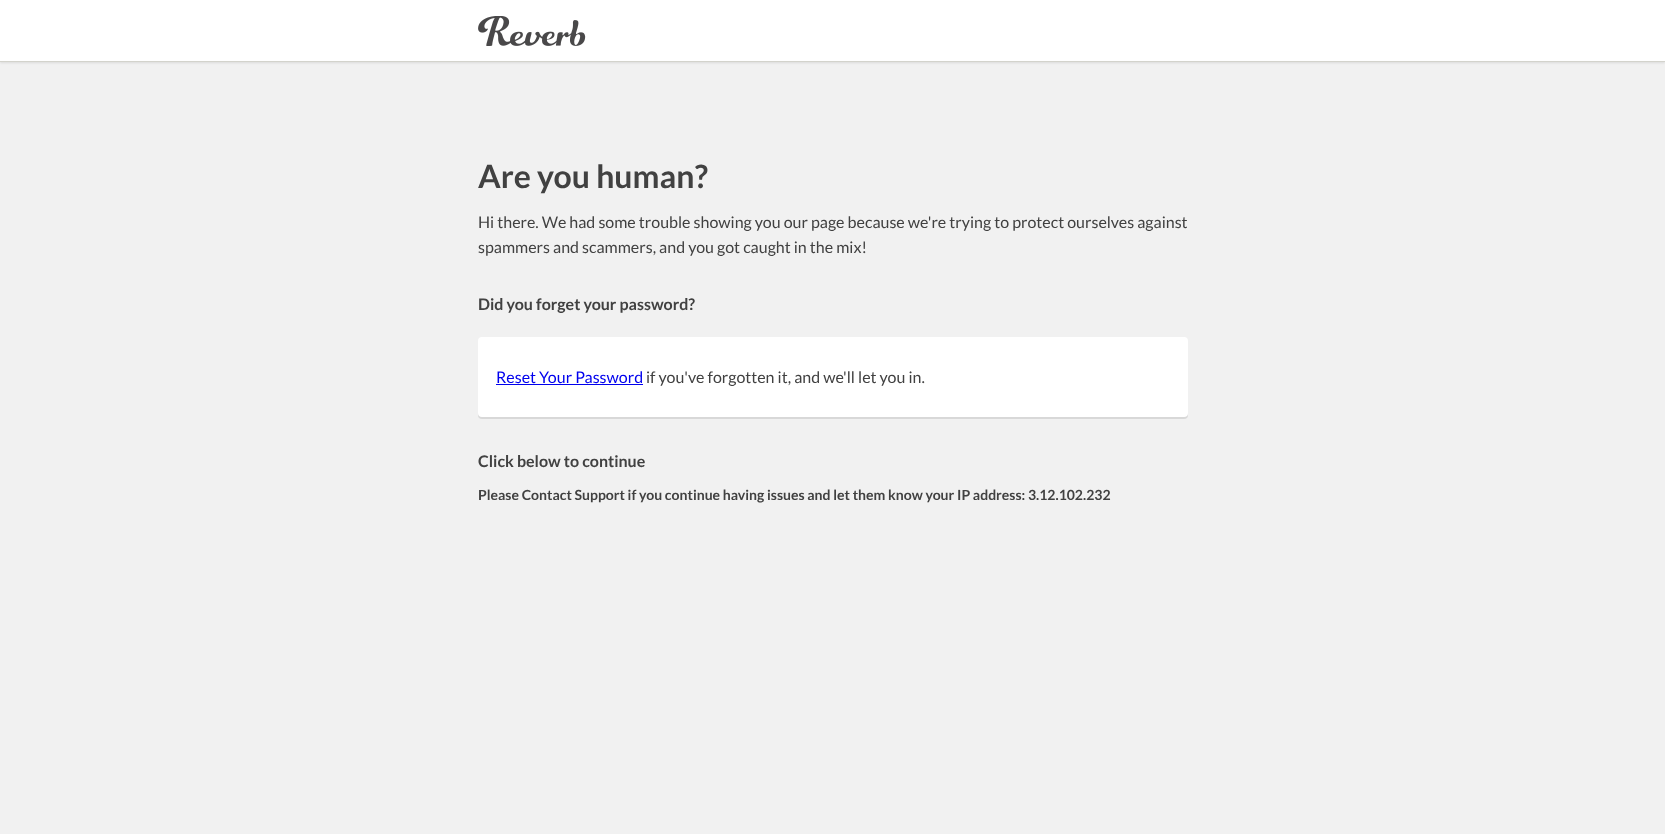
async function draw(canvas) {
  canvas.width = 1665;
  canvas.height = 834;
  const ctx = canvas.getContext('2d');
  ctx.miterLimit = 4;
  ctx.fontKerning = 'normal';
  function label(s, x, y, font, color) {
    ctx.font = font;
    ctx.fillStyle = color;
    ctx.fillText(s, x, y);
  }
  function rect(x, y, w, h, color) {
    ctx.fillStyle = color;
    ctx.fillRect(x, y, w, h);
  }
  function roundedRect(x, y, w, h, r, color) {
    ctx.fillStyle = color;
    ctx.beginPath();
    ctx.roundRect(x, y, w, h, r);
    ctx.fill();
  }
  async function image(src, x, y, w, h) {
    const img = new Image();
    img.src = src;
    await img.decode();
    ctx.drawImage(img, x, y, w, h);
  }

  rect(0, 0, 1665, 834, '#f1f1f1');
  ctx.fillStyle = '#2121211a';
  ctx.filter = 'blur(1px)';
  ctx.beginPath();
  ctx.rect(0, 1, 1665, 62);
  ctx.fill();
  ctx.filter = 'none';
  rect(0, 0, 1665, 61, '#fff');
  rect(0, 61, 1665, 1, '#d3d3cc');
  await image('assets/img1.png', 478, 16, 108, 30);
  label('Are you human?', 478, 188, 'bold 32px Lato', '#414141');
  label('Hi there. We had some trouble showing you our page because we\'re trying to protect ourselves against', 478, 228, '16px Lato', '#414141');
  label('spammers and scammers, and you got caught in the mix!', 478, 253, '16px Lato', '#414141');
  label('Did you forget your password?', 478, 310, 'bold 16px Lato', '#414141');
  ctx.fillStyle = '#0000001a';
  ctx.filter = 'blur(0.5px)';
  ctx.beginPath();
  ctx.roundRect(478, 339, 710, 80, 4);
  ctx.fill();
  ctx.filter = 'none';
  roundedRect(478, 337, 710, 80, 4, '#fff');
  label('Reset Your Password', 496, 383, '16px Lato', '#00e');
  rect(496, 384, 147, 1, '#00e');
  label('if you\'ve forgotten it, and we\'ll let you in.', 646, 383, '16px Lato', '#414141');
  label('Click below to continue', 478, 467, 'bold 16px Lato', '#414141');
  label('Please Contact Support if you continue having issues and let them know your IP address: 3.12.102.232', 478, 500, 'bold 14px Lato', '#414141');
}

draw(document.querySelector('canvas'));
